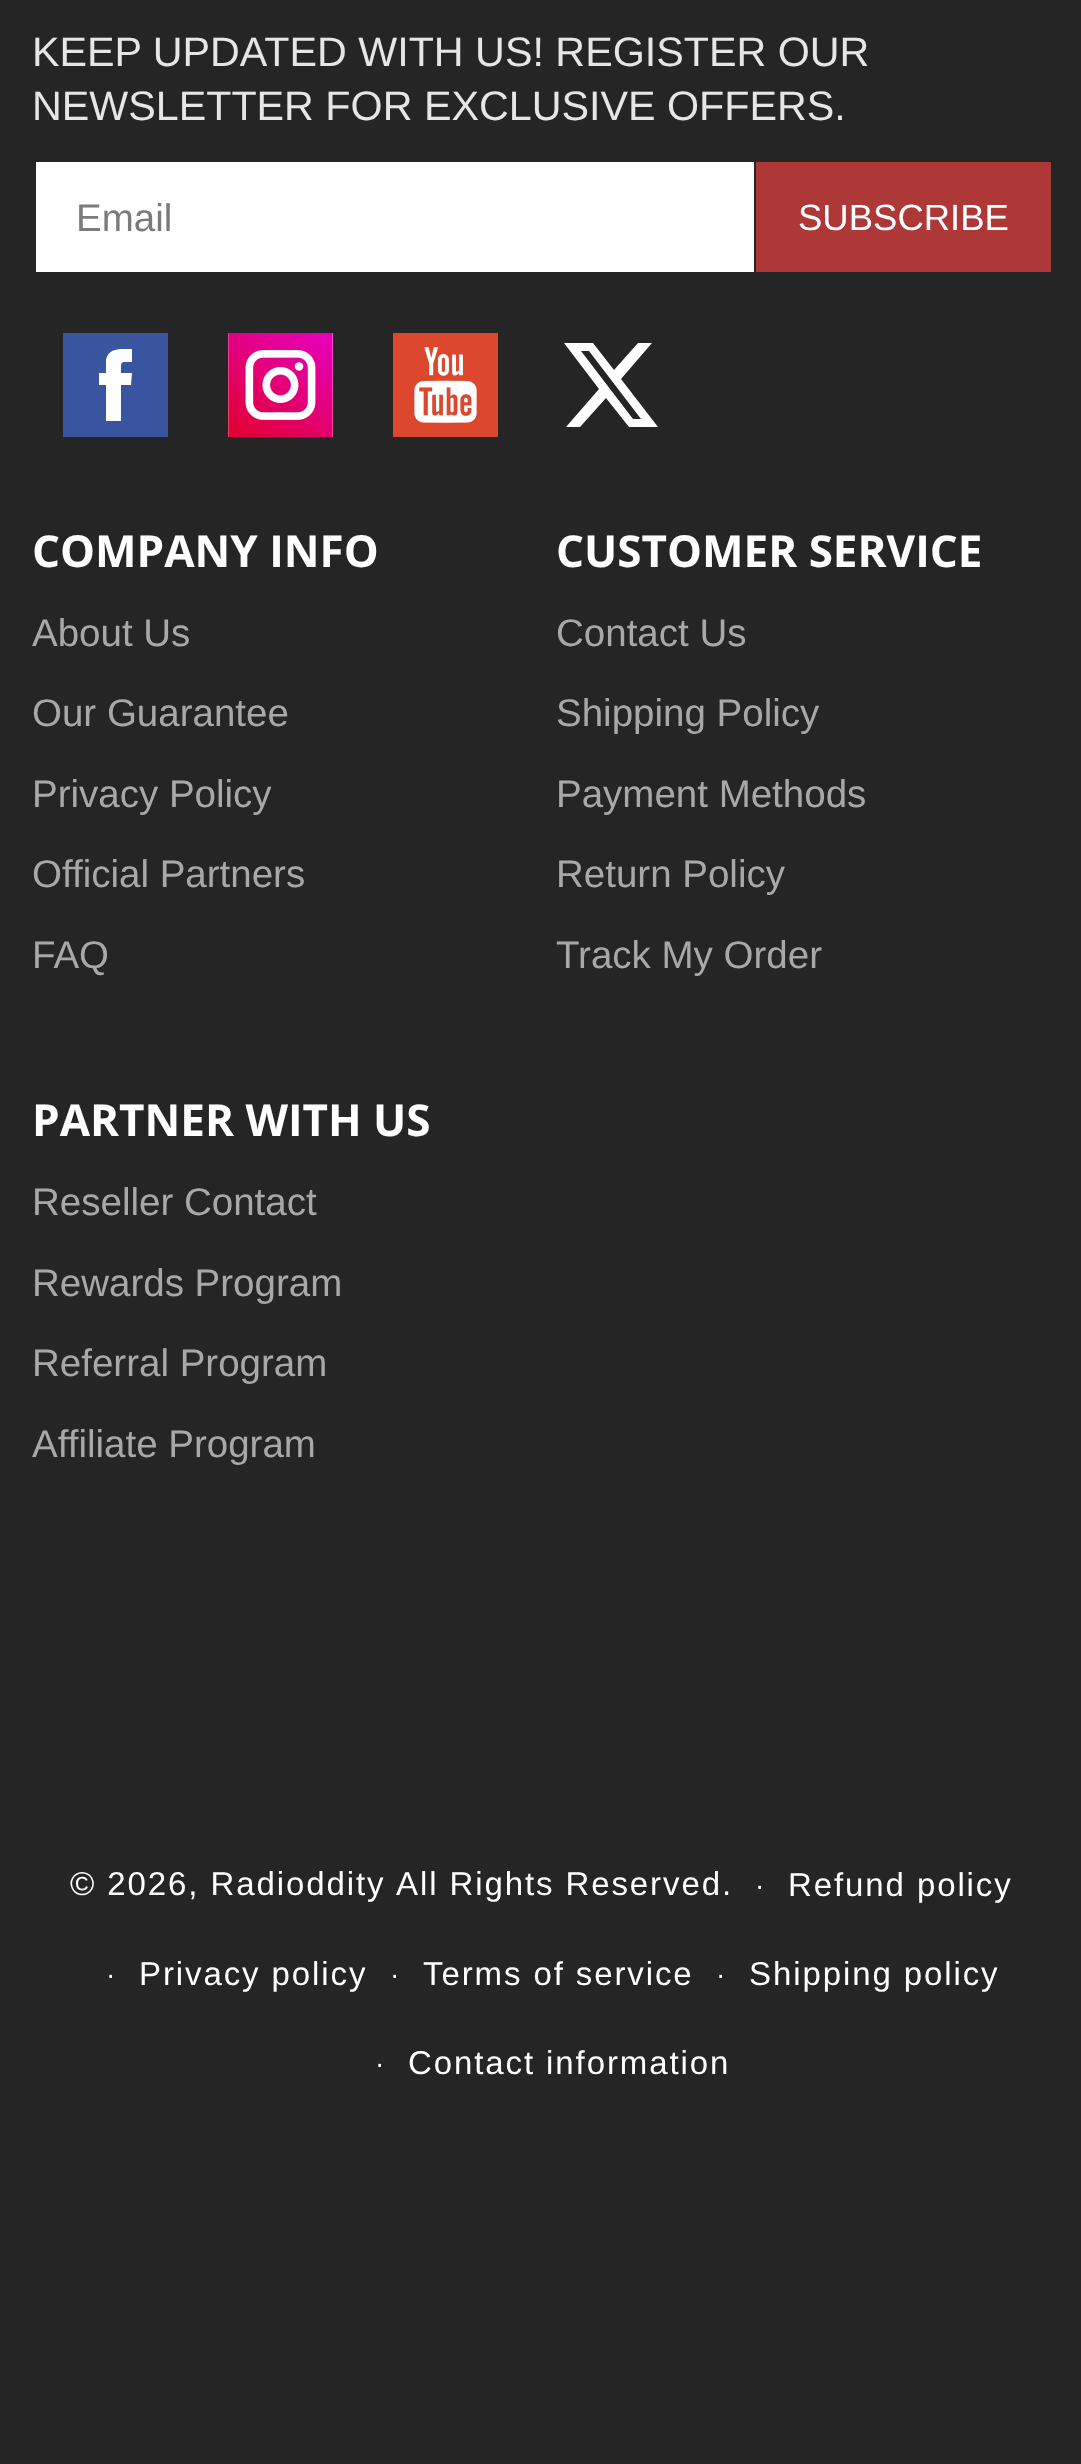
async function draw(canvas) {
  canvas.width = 1081;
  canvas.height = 2464;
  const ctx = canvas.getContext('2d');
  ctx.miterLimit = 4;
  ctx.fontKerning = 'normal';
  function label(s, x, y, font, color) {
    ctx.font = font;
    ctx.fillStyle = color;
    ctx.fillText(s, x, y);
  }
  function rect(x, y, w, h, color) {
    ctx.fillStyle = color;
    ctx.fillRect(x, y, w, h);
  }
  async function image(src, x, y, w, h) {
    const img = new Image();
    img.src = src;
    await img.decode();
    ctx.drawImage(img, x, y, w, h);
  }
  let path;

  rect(0, 0, 1081, 2464, '#252525');
  label('KEEP UPDATED WITH US! REGISTER OUR', 32, 66, '41.25px Arimo', '#e6e6e6');
  label('NEWSLETTER FOR EXCLUSIVE OFFERS.', 32, 120, '41.25px Arimo', '#e6e6e6');
  rect(36, 162, 718, 110, '#fff');
  label('Email', 76, 231, '38.5px Arimo', '#7b7b7b');
  rect(756, 162, 295, 110, '#ae3737');
  label('SUBSCRIBE', 798, 230, '36.5px Liberation Sans', '#fff');
  rect(99, 348, 33, 73, '#fff');
  ctx.fillStyle = '#3a559f';
  path = new Path2D('M63 333V437H168V333ZM132 362C120 362 121 360 121 373H132L131 385H121V421H106V385H99V373H106V360C108 347 122 349 132 349Z');
  ctx.fill(path, 'evenodd');
  await image('assets/img1.png', 228, 333, 105, 104);
  await image('assets/img2.png', 393, 333, 105, 104);
  ctx.fillStyle = '#fff';
  path = new Path2D('M638 343H652L621 379L658 427H629L606 398L580 427H566L599 389L564 343H593L614 370ZM633 419H641L589 351H581Z');
  ctx.fill(path);
  label('COMPANY INFO', 32, 567, 'bold 44px Open Sans', '#fff');
  label('About Us', 32, 646, '38.5px Arimo', '#a8a8a8');
  label('Our Guarantee', 32, 726, '38.5px Arimo', '#a8a8a8');
  label('Privacy Policy', 32, 807, '38.5px Arimo', '#a8a8a8');
  label('Official Partners', 32, 887, '38.5px Arimo', '#a8a8a8');
  label('FAQ', 32, 968, '38.5px Arimo', '#a8a8a8');
  label('CUSTOMER SERVICE', 556, 567, 'bold 44px Open Sans', '#fff');
  label('Contact Us', 556, 646, '38.5px Arimo', '#a8a8a8');
  label('Shipping Policy', 556, 726, '38.5px Arimo', '#a8a8a8');
  label('Payment Methods', 556, 807, '38.5px Arimo', '#a8a8a8');
  label('Return Policy', 556, 887, '38.5px Arimo', '#a8a8a8');
  label('Track My Order', 556, 968, '38.5px Arimo', '#a8a8a8');
  label('PARTNER WITH US', 32, 1136, 'bold 44px Open Sans', '#fff');
  label('Reseller Contact', 32, 1215, '38.5px Arimo', '#a8a8a8');
  label('Rewards Program', 32, 1296, '38.5px Arimo', '#a8a8a8');
  label('Referral Program', 32, 1376, '38.5px Arimo', '#a8a8a8');
  label('Affiliate Program', 32, 1457, '38.5px Arimo', '#a8a8a8');
  ctx.letterSpacing = '1.9px';
  label('© 2026, Radioddity', 70, 1895, '33px Arimo', '#fff');
  label('All Rights Reserved.', 396, 1895, '33px Arimo', '#fff');
  label('·', 755, 1895, '28px Arimo', '#fff');
  label('Refund policy', 788, 1896, '33px Arimo', '#fff');
  label('·', 106, 1984, '28px Arimo', '#fff');
  label('Privacy policy', 139, 1985, '33px Arimo', '#fff');
  label('·', 390, 1984, '28px Arimo', '#fff');
  label('Terms of service', 423, 1985, '33px Arimo', '#fff');
  label('·', 716, 1984, '28px Arimo', '#fff');
  label('Shipping policy', 749, 1985, '33px Arimo', '#fff');
  label('·', 375, 2073, '28px Arimo', '#fff');
  label('Contact information', 408, 2074, '33px Arimo', '#fff');
}

draw(document.querySelector('canvas'));
